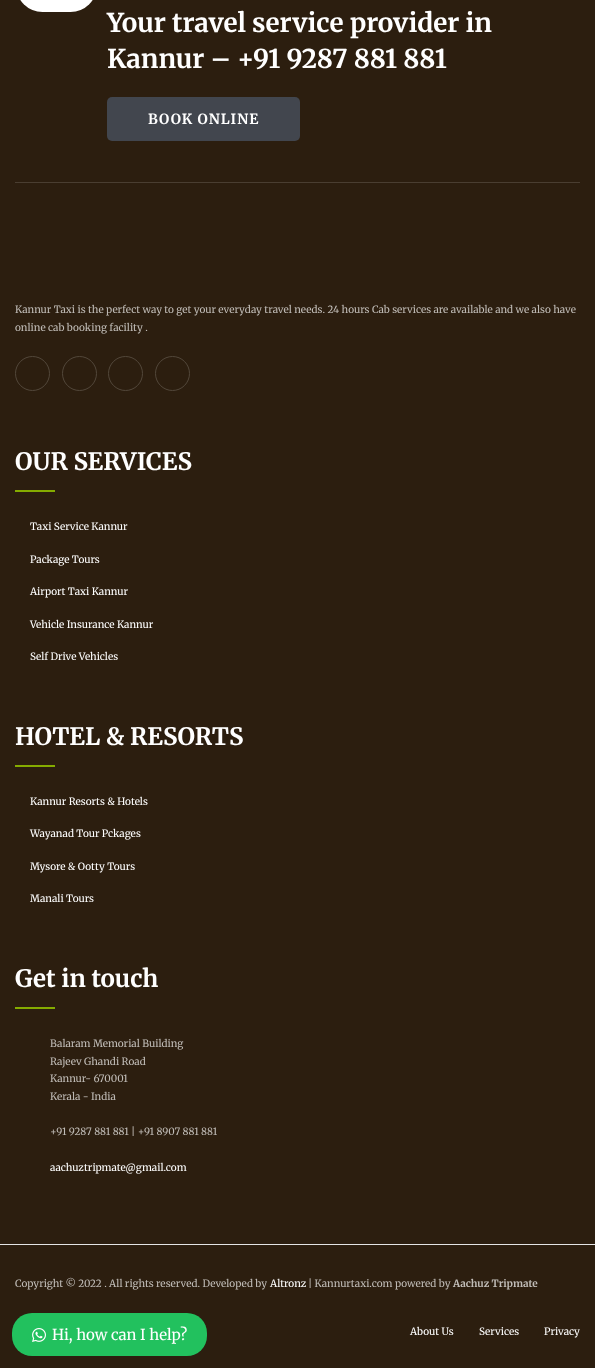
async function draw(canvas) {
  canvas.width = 595;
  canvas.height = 1368;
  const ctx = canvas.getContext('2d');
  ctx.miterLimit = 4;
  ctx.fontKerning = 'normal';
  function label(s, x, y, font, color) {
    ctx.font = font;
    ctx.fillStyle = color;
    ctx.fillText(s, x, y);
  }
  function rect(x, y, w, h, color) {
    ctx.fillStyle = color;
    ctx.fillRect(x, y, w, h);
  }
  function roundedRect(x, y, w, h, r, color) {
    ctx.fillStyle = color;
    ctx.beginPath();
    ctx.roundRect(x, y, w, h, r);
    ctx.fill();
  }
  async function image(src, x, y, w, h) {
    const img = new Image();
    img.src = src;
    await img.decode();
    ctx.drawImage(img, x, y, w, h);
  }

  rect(0, 0, 595, 1368, '#2c1e0f');
  roundedRect(16, -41, 81, 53, 40.5, '#fff');
  label('Your travel service provider in', 107, 32, 'bold 26px Merriweather', '#fff');
  label('Kannur – +91 9287 881 881', 107, 68, 'bold 26px Merriweather', '#fff');
  roundedRect(107, 97, 193, 44, 5, '#42464e');
  ctx.letterSpacing = '1px';
  label('BOOK ONLINE', 148, 124, 'bold 14px Merriweather', '#fff');
  rect(0, 1244, 595, 1, '#e5e5e5');
  rect(15, 182, 565, 1, '#4a3e31');
  ctx.letterSpacing = '0px';
  label('Kannur Taxi is the perfect way to get your everyday travel needs. 24 hours Cab services are available and we also have', 15, 313, '10px Merriweather', '#c0bcb7');
  label('online cab booking facility .', 15, 331, '10px Merriweather', '#c0bcb7');
  ctx.beginPath();
  ctx.arc(32.5, 373.5, 17, 0, 2 * Math.PI);
  ctx.strokeStyle = '#52473a';
  ctx.stroke();
  ctx.beginPath();
  ctx.arc(79.5, 373.5, 17, 0, 2 * Math.PI);
  ctx.stroke();
  ctx.beginPath();
  ctx.arc(125.5, 373.5, 17, 0, 2 * Math.PI);
  ctx.stroke();
  ctx.beginPath();
  ctx.arc(172.5, 373.5, 17, 0, 2 * Math.PI);
  ctx.stroke();
  label('OUR SERVICES', 15, 470, 'bold 24px Merriweather', '#fff');
  rect(15, 490, 40, 2, '#85ab00');
  label('Taxi Service Kannur', 30, 530, '10px Merriweather', '#fff');
  label('Package Tours', 30, 563, '10px Merriweather', '#fff');
  label('Airport Taxi Kannur', 30, 595, '10px Merriweather', '#fff');
  label('Vehicle Insurance Kannur', 30, 628, '10px Merriweather', '#fff');
  label('Self Drive Vehicles', 30, 660, '10px Merriweather', '#fff');
  label('HOTEL & RESORTS', 15, 745, 'bold 24px Merriweather', '#fff');
  rect(15, 765, 40, 2, '#85ab00');
  label('Kannur Resorts & Hotels', 30, 805, '10px Merriweather', '#fff');
  label('Wayanad Tour Pckages', 30, 837, '10px Merriweather', '#fff');
  label('Mysore & Ootty Tours', 30, 870, '10px Merriweather', '#fff');
  label('Manali Tours', 30, 902, '10px Merriweather', '#fff');
  label('Get in touch', 15, 987, 'bold 24px Merriweather', '#fff');
  rect(15, 1007, 40, 2, '#85ab00');
  label('Balaram Memorial Building', 50, 1047, '10px Merriweather', '#c0bcb7');
  label('Rajeev Ghandi Road', 50, 1065, '10px Merriweather', '#c0bcb7');
  label('Kannur- 670001', 50, 1082, '10px Merriweather', '#c0bcb7');
  label('Kerala - India', 50, 1100, '10px Merriweather', '#c0bcb7');
  label('+91 9287 881 881 | +91 8907 881 881', 50, 1135, '10px Merriweather', '#c0bcb7');
  label('aachuztripmate@gmail.com', 50, 1171, '10px Merriweather', '#fff');
  label('Copyright © 2022 . All rights reserved. Developed by', 15, 1287, '10px Merriweather', '#c0bcb7');
  label('Altronz', 270, 1287, '10px Merriweather', '#fff');
  label('| Kannurtaxi.com powered by', 308, 1287, '10px Merriweather', '#c0bcb7');
  label('Aachuz Tripmate', 453, 1287, 'bold 10px Merriweather', '#c0bcb7');
  label('About Us', 410, 1335, '10px Merriweather', '#fff');
  label('Services', 479, 1335, '10px Merriweather', '#fff');
  label('Privacy', 544, 1335, '10px Merriweather', '#fff');
  roundedRect(12, 1313, 195, 43, 20, '#22c15e');
  await image('assets/img1.png', 32, 1328, 14, 14);
  label('Hi, how can I help?', 52, 1340, '15px Merriweather', '#fff');
}

draw(document.querySelector('canvas'));
